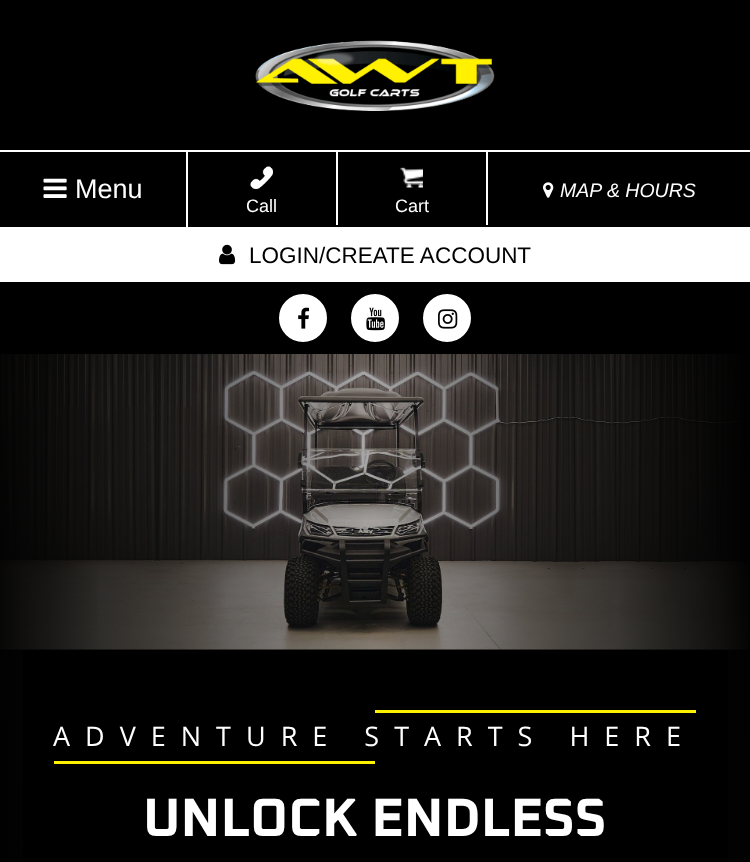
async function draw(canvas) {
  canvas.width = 750;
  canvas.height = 862;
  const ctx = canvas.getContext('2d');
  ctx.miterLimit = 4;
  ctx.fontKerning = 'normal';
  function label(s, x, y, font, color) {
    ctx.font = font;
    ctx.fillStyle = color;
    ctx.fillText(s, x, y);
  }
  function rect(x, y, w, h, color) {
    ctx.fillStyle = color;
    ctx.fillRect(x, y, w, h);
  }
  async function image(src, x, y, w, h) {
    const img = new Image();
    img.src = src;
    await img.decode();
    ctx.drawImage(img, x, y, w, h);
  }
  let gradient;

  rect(0, 0, 750, 862, '#000');
  await image('assets/img1.png', 255, 40, 240, 71);
  rect(0, 227, 750, 55, '#fff');
  rect(0, 150, 750, 2, '#fff');
  rect(186, 152, 2, 75, '#fff');
  await image('assets/img2.png', 43, 178, 24, 20);
  label('Menu', 75, 198, '27px Liberation Sans', '#fff');
  await image('assets/img3.png', 543, 182, 11, 16);
  label('MAP & HOURS', 560, 197, 'italic 19.5px Liberation Sans', '#fff');
  rect(336, 152, 2, 73, '#fff');
  await image('assets/img4.png', 250, 166, 23, 23);
  label('Call', 246, 212, '18px Liberation Sans', '#fff');
  rect(486, 152, 2, 73, '#fff');
  await image('assets/img5.png', 400, 167, 23, 21);
  label('Cart', 395, 212, '18px Liberation Sans', '#fff');
  await image('assets/img6.png', 219, 244, 17, 21);
  label('LOGIN/CREATE ACCOUNT', 249, 263, '22.5px Liberation Sans', '#000');
  ctx.fillStyle = '#fff';
  ctx.beginPath();
  ctx.arc(303, 318, 23, 0, 2 * Math.PI);
  ctx.fill();
  ctx.strokeStyle = '#fff';
  ctx.lineWidth = 2;
  ctx.stroke();
  await image('assets/img7.png', 298, 307, 12, 22);
  ctx.beginPath();
  ctx.arc(375, 318, 23, 0, 2 * Math.PI);
  ctx.fill();
  ctx.stroke();
  await image('assets/img8.png', 366, 307, 19, 24);
  ctx.beginPath();
  ctx.arc(447, 318, 23, 0, 2 * Math.PI);
  ctx.fill();
  ctx.stroke();
  await image('assets/img9.png', 438, 309, 20, 20);
  await image('assets/img10.png', 0, 354, 750, 296);
  gradient = ctx.createLinearGradient(-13, 760, 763, 733);
  gradient.addColorStop(0, '#000');
  gradient.addColorStop(0.5, '#1f1f1f33');
  gradient.addColorStop(0.51, '#1f1f1f33');
  gradient.addColorStop(1, '#000');
  ctx.fillStyle = gradient;
  ctx.fillRect(0, 354, 750, 508);
  rect(23, 650, 705, 212, '#000');
  rect(375, 710, 321, 3, '#fff100');
  ctx.letterSpacing = '15px';
  label('ADVENTURE STARTS HERE', 53, 746, '27px Open Sans', '#fff');
  rect(54, 761, 321, 3, '#fff100');
  ctx.letterSpacing = '0px';
  label('UNLOCK ENDLESS', 143, 836, 'bold 54px Oxanium', '#fff');
}

draw(document.querySelector('canvas'));
